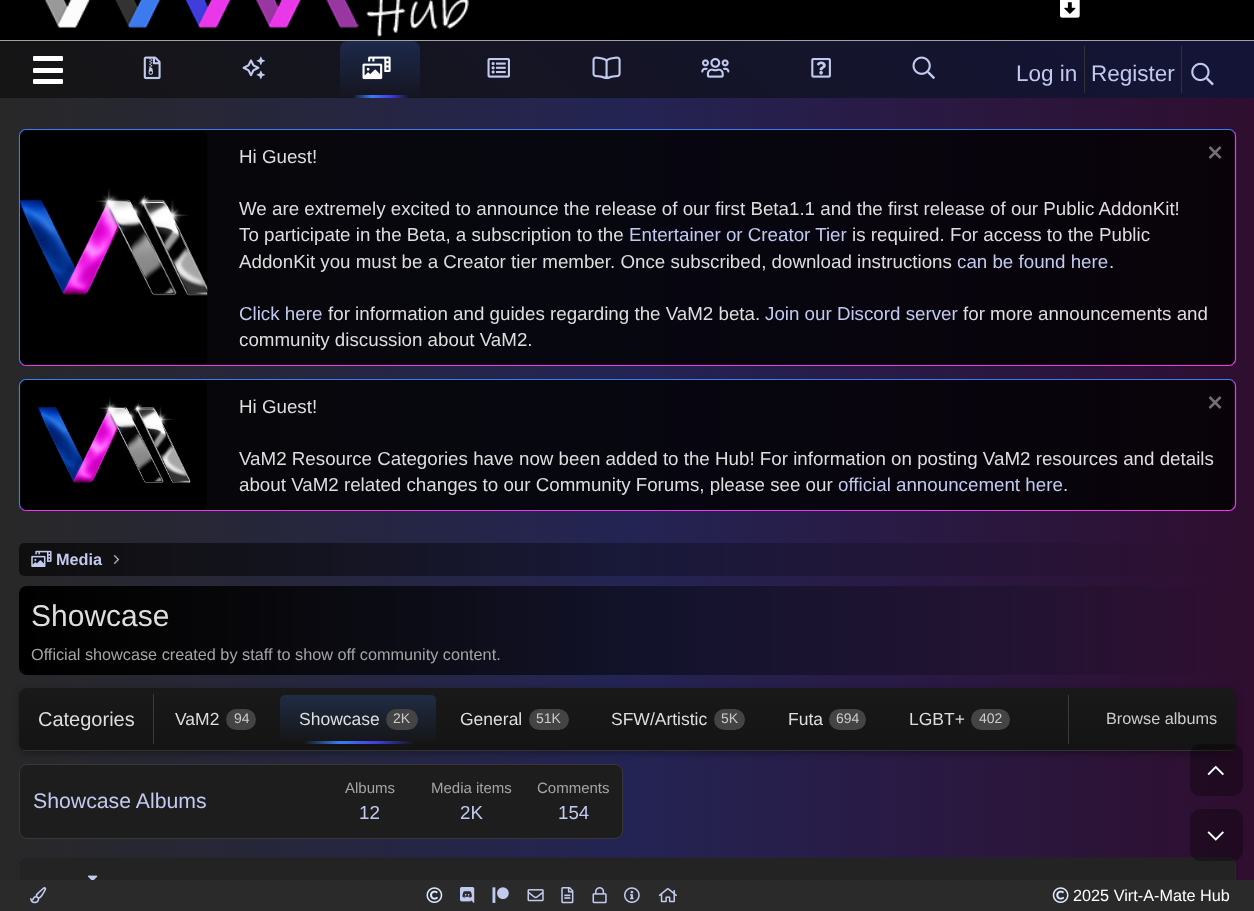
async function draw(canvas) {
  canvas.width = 1254;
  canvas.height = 911;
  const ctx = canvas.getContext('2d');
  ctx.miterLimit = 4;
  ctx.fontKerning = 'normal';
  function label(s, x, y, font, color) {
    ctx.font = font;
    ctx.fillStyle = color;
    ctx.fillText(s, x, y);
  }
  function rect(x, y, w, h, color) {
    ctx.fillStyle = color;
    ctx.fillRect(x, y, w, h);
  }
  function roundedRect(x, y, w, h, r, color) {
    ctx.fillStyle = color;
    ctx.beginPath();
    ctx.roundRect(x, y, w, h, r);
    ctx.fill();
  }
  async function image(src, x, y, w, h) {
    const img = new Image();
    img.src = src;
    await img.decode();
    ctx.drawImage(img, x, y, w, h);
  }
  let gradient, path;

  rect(0, 0, 1254, 911, '#fff');
  gradient = ctx.createLinearGradient(0, 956, 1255, 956);
  gradient.addColorStop(0, '#282828');
  gradient.addColorStop(0.5, '#242454');
  gradient.addColorStop(1, '#2f0e2f');
  ctx.fillStyle = gradient;
  ctx.fillRect(0, 98, 1254, 782);
  rect(0, 0, 1254, 40, '#000');
  await image('assets/img1.png', 44, 0, 425, 37);
  await image('assets/img2.png', 1060, 0, 20, 18);
  gradient = ctx.createLinearGradient(300, 341, 955, -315);
  gradient.addColorStop(0, '#a1a1a1');
  gradient.addColorStop(1, '#a1a1af');
  ctx.fillStyle = gradient;
  ctx.fillRect(0, 40, 1254, 1);
  gradient = ctx.createLinearGradient(300, 397, 955, -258);
  gradient.addColorStop(0, '#151515');
  gradient.addColorStop(1, '#141438');
  ctx.fillStyle = gradient;
  ctx.fillRect(0, 41, 1254, 57);
  roundedRect(33, 56, 30, 5, 1, '#fff');
  roundedRect(33, 68, 30, 5, 1, '#fff');
  roundedRect(33, 79, 30, 5, 1, '#fff');
  await image('assets/img3.png', 143, 56, 18, 24);
  await image('assets/img4.png', 242, 56, 23, 23);
  gradient = ctx.createLinearGradient(380, 41, 380, 98);
  gradient.addColorStop(0, '#3a7cf433');
  gradient.addColorStop(1, '#3a7cf400');
  ctx.fillStyle = gradient;
  ctx.beginPath();
  ctx.roundRect(340, 41, 80, 57, [8, 8, 0, 0]);
  ctx.fill();
  await image('assets/img5.png', 362, 56, 29, 24);
  gradient = ctx.createLinearGradient(353, 96, 409, 96);
  gradient.addColorStop(0, '#3a7cf400');
  gradient.addColorStop(0.33, '#3a7cf4');
  gradient.addColorStop(0.67, '#403de2');
  gradient.addColorStop(1, '#403de200');
  ctx.fillStyle = gradient;
  ctx.fillRect(353, 95, 56, 3);
  await image('assets/img6.png', 487, 58, 23, 20);
  await image('assets/img7.png', 592, 56, 29, 24);
  await image('assets/img8.png', 701, 58, 29, 20);
  await image('assets/img9.png', 811, 58, 20, 20);
  await image('assets/img10.png', 912, 56, 23, 23);
  label('Log in', 1016, 81, '22.5px Liberation Sans', '#c2caef');
  rect(1084, 46, 1, 47, '#323232');
  label('Register', 1091, 81, '22.5px Liberation Sans', '#c2caef');
  rect(1181, 46, 1, 47, '#323232');
  await image('assets/img11.png', 1191, 62, 23, 24);
  roundedRect(19, 129, 1217, 237, 8, '#000000cc');
  path = new Path2D('M1233.5 131.5C1235 132.5 1235.5 134.5 1235.5 136V359C1235.5 360.5 1235 362.5 1233.5 363.5C1232.5 365 1230.5 365.5 1229 365.5H26C24.5 365.5 22.5 365 21.5 363.5');
  ctx.strokeStyle = '#ef37ef';
  ctx.lineWidth = 1.2;
  ctx.stroke(path);
  path = new Path2D('M21.5 363.5C20 362.5 19.5 360.5 19.5 359V136C19.5 134.5 20 132.5 21.5 131.5C22.5 130 24.5 129.5 26 129.5H1229C1230.5 129.5 1232.5 130 1233.5 131.5');
  ctx.strokeStyle = '#3a7cf4';
  ctx.stroke(path);
  await image('assets/img12.png', 20, 130, 188, 235);
  label('Hi Guest!', 239, 163, '18.75px Liberation Sans', '#dedede');
  await image('assets/img13.png', 1208, 146, 14, 13);
  label('We are extremely excited to announce the release of our first Beta1.1 and the first release of our Public AddonKit!', 239, 215, '18.75px Liberation Sans', '#dedede');
  label('To participate in the Beta, a subscription to the', 239, 241, '18.75px Liberation Sans', '#dedede');
  label('Entertainer or Creator Tier', 629, 241, '18.75px Liberation Sans', '#c2caef');
  label('is required. For access to the Public', 852, 241, '18.75px Liberation Sans', '#dedede');
  label('AddonKit you must be a Creator tier member. Once subscribed, download instructions', 239, 268, '18.75px Liberation Sans', '#dedede');
  label('can be found here', 957, 268, '18.75px Liberation Sans', '#c2caef');
  label('.', 1109, 268, '18.75px Liberation Sans', '#dedede');
  label('Click here', 239, 320, '18.75px Liberation Sans', '#c2caef');
  label('for information and guides regarding the VaM2 beta.', 328, 320, '18.75px Liberation Sans', '#dedede');
  label('Join our Discord server', 765, 320, '18.75px Liberation Sans', '#c2caef');
  label('for more announcements and', 963, 320, '18.75px Liberation Sans', '#dedede');
  label('community discussion about VaM2.', 239, 346, '18.75px Liberation Sans', '#dedede');
  roundedRect(19, 379, 1217, 132, 8, '#000000cc');
  path = new Path2D('M1233.5 381.5C1235 382.5 1235.5 384.5 1235.5 386V504C1235.5 505.5 1235 507.5 1233.5 508.5C1232.5 510 1230.5 510.5 1229 510.5H26C24.5 510.5 22.5 510 21.5 508.5');
  ctx.strokeStyle = '#ef37ef';
  ctx.stroke(path);
  path = new Path2D('M21.5 508.5C20 507.5 19.5 505.5 19.5 504V386C19.5 384.5 20 382.5 21.5 381.5C22.5 380 24.5 379.5 26 379.5H1229C1230.5 379.5 1232.5 380 1233.5 381.5');
  ctx.strokeStyle = '#3a7cf4';
  ctx.stroke(path);
  await image('assets/img14.png', 20, 380, 187, 130);
  label('Hi Guest!', 239, 413, '18.75px Liberation Sans', '#dedede');
  await image('assets/img13.png', 1208, 396, 14, 13);
  label('VaM2 Resource Categories have now been added to the Hub! For information on posting VaM2 resources and details', 239, 465, '18.75px Liberation Sans', '#dedede');
  label('about VaM2 related changes to our Community Forums, please see our', 239, 491, '18.75px Liberation Sans', '#dedede');
  label('official announcement here', 838, 491, '18.75px Liberation Sans', '#c2caef');
  label('.', 1063, 491, '18.75px Liberation Sans', '#dedede');
  gradient = ctx.createLinearGradient(19, 559, 1236, 559);
  gradient.addColorStop(0, '#000000a1');
  gradient.addColorStop(1, '#00000000');
  ctx.fillStyle = gradient;
  ctx.beginPath();
  ctx.roundRect(19, 543, 1217, 33, 5);
  ctx.fill();
  await image('assets/img15.png', 31, 550, 21, 17);
  label('Media', 56, 565, 'bold 16.25px Liberation Sans', '#c2caef');
  await image('assets/img16.png', 113, 555, 7, 9);
  gradient = ctx.createLinearGradient(19, 631, 1236, 631);
  gradient.addColorStop(0, '#000');
  gradient.addColorStop(1, '#00000000');
  ctx.fillStyle = gradient;
  ctx.beginPath();
  ctx.roundRect(19, 586, 1217, 89, 8);
  ctx.fill();
  label('Showcase', 31, 626, '30px Liberation Sans', '#dedede');
  label('Official showcase created by staff to show off community content.', 31, 660, '16.25px Liberation Sans', '#a5a5a5');
  ctx.fillStyle = '#0000004d';
  ctx.filter = 'blur(3px)';
  ctx.beginPath();
  ctx.roundRect(19, 690, 1217, 64, 8);
  ctx.fill();
  ctx.filter = 'none';
  ctx.save();
  ctx.beginPath();
  ctx.roundRect(19, 688, 1217, 63, 8);
  ctx.clip();
  gradient = ctx.createLinearGradient(628, 750, 628, 688);
  gradient.addColorStop(0, '#141414');
  gradient.addColorStop(1, '#191919');
  ctx.fillStyle = gradient;
  ctx.beginPath();
  ctx.roundRect(19, 688, 1217, 62, [8, 8, 0, 0]);
  ctx.fill();
  ctx.restore();
  rect(23, 750, 1210, 1, '#333');
  rect(153, 694, 1, 50, '#3a3a3a');
  label('Categories', 38, 726, '20px Liberation Sans', '#dedede');
  label('VaM2', 175, 725, '17.5px Liberation Sans', '#dedede');
  roundedRect(226, 709, 30, 21, 10.5, '#444');
  label('94', 234, 723, '14px Liberation Sans', '#ccc');
  gradient = ctx.createLinearGradient(358, 695, 358, 744);
  gradient.addColorStop(0, '#3a7cf433');
  gradient.addColorStop(1, '#3a7cf400');
  ctx.fillStyle = gradient;
  ctx.beginPath();
  ctx.roundRect(280, 695, 156, 49, 5);
  ctx.fill();
  label('Showcase', 299, 725, '17.5px Liberation Sans', '#dedede');
  roundedRect(386, 709, 32, 21, 10.5, '#444');
  label('2K', 393, 723, '14px Liberation Sans', '#ccc');
  gradient = ctx.createLinearGradient(304, 743, 413, 743);
  gradient.addColorStop(0, '#151616');
  gradient.addColorStop(0.33, '#3a7cf4');
  gradient.addColorStop(0.67, '#403de2');
  gradient.addColorStop(1, '#151616');
  ctx.fillStyle = gradient;
  ctx.fillRect(304, 741, 109, 3);
  label('General', 460, 725, '17.5px Liberation Sans', '#dedede');
  roundedRect(529, 709, 40, 21, 10.5, '#444');
  label('51K', 536, 723, '14px Liberation Sans', '#ccc');
  label('SFW/Artistic', 611, 725, '17.5px Liberation Sans', '#dedede');
  roundedRect(714, 709, 31, 21, 10.5, '#444');
  label('5K', 721, 723, '14px Liberation Sans', '#ccc');
  label('Futa', 788, 725, '17.5px Liberation Sans', '#dedede');
  roundedRect(829, 709, 37, 21, 10.5, '#444');
  label('694', 836, 723, '14px Liberation Sans', '#ccc');
  label('LGBT+', 909, 725, '17.5px Liberation Sans', '#dedede');
  roundedRect(971, 709, 39, 21, 10.5, '#444');
  label('402', 979, 723, '14px Liberation Sans', '#ccc');
  rect(1068, 695, 1, 49, '#3a3a3a');
  label('Browse albums', 1106, 724, '16.25px Liberation Sans', '#ccc');
  ctx.fillStyle = '#1d1d1d';
  ctx.beginPath();
  ctx.roundRect(19.5, 764.5, 603, 74, 7.5);
  ctx.fill();
  ctx.strokeStyle = '#373737';
  ctx.lineWidth = 1;
  ctx.stroke();
  label('Showcase Albums', 33, 808, '21.25px Liberation Sans', '#c2caef');
  label('Albums', 345, 793, '15px Liberation Sans', '#a5a5a5');
  label('12', 359, 819, '18.75px Liberation Sans', '#c2caef');
  label('Media items', 431, 793, '15px Liberation Sans', '#a5a5a5');
  label('2K', 460, 819, '18.75px Liberation Sans', '#c2caef');
  label('Comments', 537, 793, '15px Liberation Sans', '#a5a5a5');
  label('154', 558, 819, '18.75px Liberation Sans', '#c2caef');
  roundedRect(19, 858, 1217, 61, 8, '#1d1d1d');
  path = new Path2D('M21.5 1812.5C20 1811 19.5 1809.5 19.5 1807.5V865C19.5 863 20 861.5 21.5 860C22.5 859 24.5 858 26 858H1229C1230.5 858 1232.5 859 1233.5 860C1235 861.5 1235.5 863 1235.5 865V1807.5C1235.5 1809.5 1235 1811 1233.5 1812.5');
  ctx.strokeStyle = '#282828';
  ctx.lineWidth = 1.2;
  ctx.stroke(path);
  ctx.fillStyle = '#232323';
  ctx.beginPath();
  ctx.roundRect(20, 859, 1215, 41, [6, 6, 8, 8]);
  ctx.fill();
  await image('assets/img17.png', 87, 875, 11, 5);
  rect(0, 880, 1254, 31, '#2a2a2a');
  await image('assets/img18.png', 30, 887, 17, 17);
  await image('assets/img19.png', 426, 887, 17, 16);
  await image('assets/img20.png', 460, 887, 15, 17);
  await image('assets/img21.png', 492, 887, 17, 16);
  await image('assets/img22.png', 527, 889, 17, 13);
  await image('assets/img23.png', 561, 887, 13, 17);
  await image('assets/img24.png', 592, 887, 15, 17);
  await image('assets/img25.png', 624, 887, 16, 16);
  await image('assets/img26.png', 658, 888, 19, 15);
  await image('assets/img27.png', 1052, 887, 17, 16);
  label('2025 Virt-A-Mate Hub', 1073, 901, '16.25px Liberation Sans', '#fff');
  roundedRect(1190, 744, 53, 52, 10, '#0000004d');
  await image('assets/img28.png', 1207, 765, 17, 11);
  roundedRect(1190, 809, 53, 52, 10, '#0000004d');
  await image('assets/img29.png', 1207, 831, 17, 10);
}

draw(document.querySelector('canvas'));
